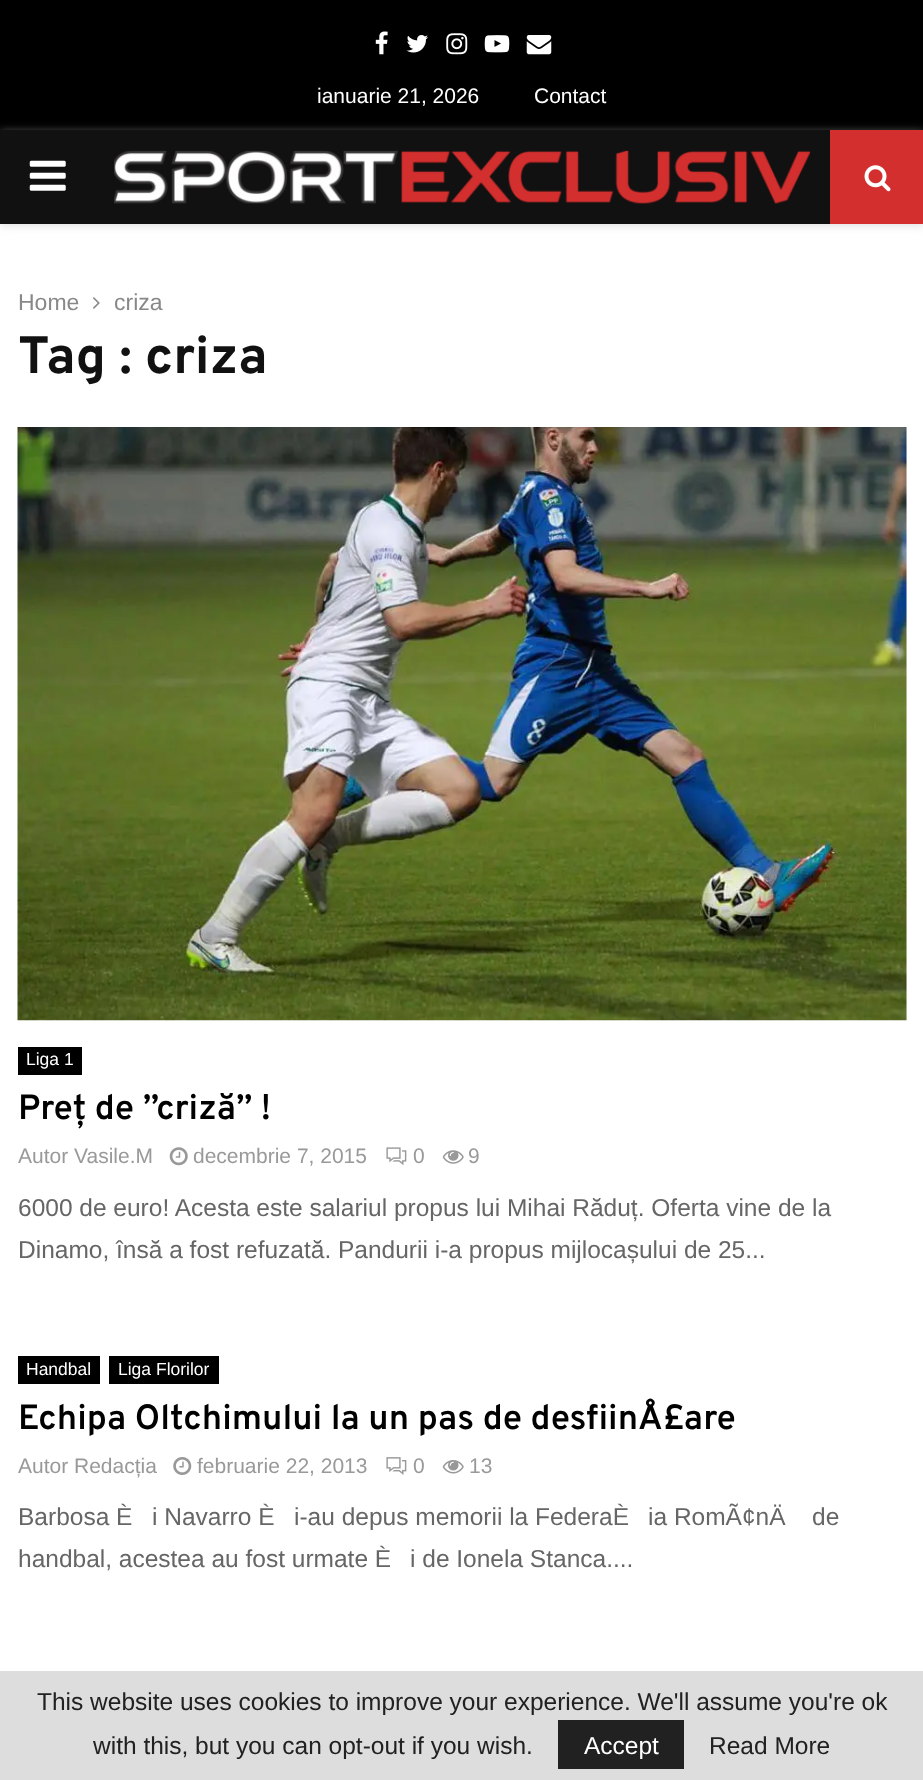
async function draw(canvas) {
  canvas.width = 923;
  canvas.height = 1780;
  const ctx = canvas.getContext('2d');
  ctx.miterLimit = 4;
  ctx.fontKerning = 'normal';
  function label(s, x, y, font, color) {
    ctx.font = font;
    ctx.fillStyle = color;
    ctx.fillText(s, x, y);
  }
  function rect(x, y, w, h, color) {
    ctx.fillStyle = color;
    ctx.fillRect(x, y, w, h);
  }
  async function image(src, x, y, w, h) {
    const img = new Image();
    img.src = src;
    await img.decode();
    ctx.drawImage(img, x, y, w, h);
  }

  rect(0, 0, 923, 1780, '#fff');
  rect(0, 0, 923, 130, '#000');
  await image('assets/img1.png', 375, 31, 13, 24);
  await image('assets/img2.png', 406, 35, 22, 18);
  await image('assets/img3.png', 446, 33, 22, 22);
  await image('assets/img4.png', 484, 35, 26, 18);
  await image('assets/img5.png', 526, 35, 26, 20);
  label('ianuarie 21, 2026', 317, 103, '21px Liberation Sans', '#fff');
  label('Contact', 534, 103, '21px Liberation Sans', '#fff');
  ctx.fillStyle = '#bebebe75';
  ctx.filter = 'blur(4.5px)';
  ctx.beginPath();
  ctx.rect(0, 131, 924, 95);
  ctx.fill();
  ctx.filter = 'none';
  rect(0, 130, 830, 94, '#111');
  await image('assets/img6.png', 29, 160, 37, 31);
  await image('assets/img7.png', 114, 150, 697, 54);
  rect(830, 130, 93, 94, '#d32f2f');
  await image('assets/img8.png', 864, 165, 27, 27);
  label('Home', 18, 310, '23px Liberation Sans', '#888');
  await image('assets/img9.png', 93, 297, 7, 12);
  label('criza', 114, 310, '23px Liberation Sans', '#888');
  label('Tag : criza', 18, 373, 'bold 52.5px Overpass', '#111');
  rect(906, 427, 1, 593, '#f5f5f5');
  await image('assets/img10.png', 17, 427, 890, 594);
  rect(18, 1047, 64, 28, '#000');
  label('Liga 1', 26, 1065, '17.5px Liberation Sans', '#fff');
  label('Preț de ”criză” !', 18, 1119, '600 35px Overpass', '#000');
  label('Autor Vasile.M', 18, 1163, '21px Liberation Sans', '#999');
  await image('assets/img11.png', 169, 1147, 19, 19);
  label('decembrie 7, 2015', 193, 1163, '21px Liberation Sans', '#999');
  await image('assets/img12.png', 386, 1147, 21, 19);
  label('0', 413, 1163, '21px Liberation Sans', '#999');
  await image('assets/img13.png', 442, 1150, 22, 14);
  label('9', 468, 1163, '21px Liberation Sans', '#999');
  label('6000 de euro! Acesta este salariul propus lui Mihai Răduț. Oferta vine de la', 18, 1216, '24.5px Liberation Sans', '#666');
  label('Dinamo, însă a fost refuzată. Pandurii i-a propus mijlocașului de 25...', 18, 1258, '24.5px Liberation Sans', '#666');
  rect(18, 1356, 82, 28, '#000');
  label('Handbal', 26, 1375, '17.5px Liberation Sans', '#fff');
  rect(109, 1356, 110, 28, '#000');
  label('Liga Florilor', 118, 1375, '17.5px Liberation Sans', '#fff');
  label('Echipa Oltchimului la un pas de desfiinÅ£are', 18, 1429, '600 35px Overpass', '#000');
  label('Autor Redacția', 18, 1473, '21px Liberation Sans', '#999');
  await image('assets/img14.png', 173, 1457, 19, 18);
  label('februarie 22, 2013', 197, 1473, '21px Liberation Sans', '#999');
  await image('assets/img15.png', 386, 1457, 21, 18);
  label('0', 413, 1473, '21px Liberation Sans', '#999');
  await image('assets/img16.png', 442, 1460, 22, 14);
  label('13', 469, 1473, '21px Liberation Sans', '#999');
  label('Barbosa È', 18, 1525, '24.5px Liberation Sans', '#666');
  label('i Navarro È', 152, 1525, '24.5px Liberation Sans', '#666');
  label('i-au depus memorii la FederaÈ', 294, 1525, '24.5px Liberation Sans', '#666');
  label('ia RomÃ¢nÄ', 648, 1525, '24.5px Liberation Sans', '#666');
  label('de', 812, 1525, '24.5px Liberation Sans', '#666');
  label('handbal, acestea au fost urmate È', 18, 1567, '24.5px Liberation Sans', '#666');
  label('i de Ionela Stanca....', 410, 1567, '24.5px Liberation Sans', '#666');
  rect(0, 1671, 923, 109, '#ddd');
  label('This website uses cookies to improve your experience. We\'ll assume you\'re ok', 37, 1710, '24.5px Liberation Sans', '#212121');
  label('with this, but you can opt-out if you wish.', 93, 1754, '24.5px Liberation Sans', '#212121');
  rect(558, 1720, 126, 49, '#212121');
  label('Accept', 584, 1754, '24.5px Liberation Sans', '#fff');
  label('Read More', 709, 1754, '24.5px Liberation Sans', '#212121');
}

draw(document.querySelector('canvas'));
